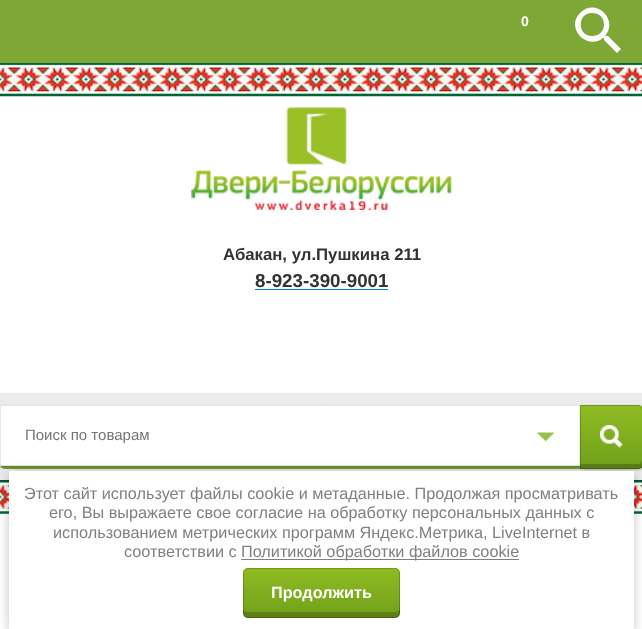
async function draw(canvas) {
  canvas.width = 642;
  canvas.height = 629;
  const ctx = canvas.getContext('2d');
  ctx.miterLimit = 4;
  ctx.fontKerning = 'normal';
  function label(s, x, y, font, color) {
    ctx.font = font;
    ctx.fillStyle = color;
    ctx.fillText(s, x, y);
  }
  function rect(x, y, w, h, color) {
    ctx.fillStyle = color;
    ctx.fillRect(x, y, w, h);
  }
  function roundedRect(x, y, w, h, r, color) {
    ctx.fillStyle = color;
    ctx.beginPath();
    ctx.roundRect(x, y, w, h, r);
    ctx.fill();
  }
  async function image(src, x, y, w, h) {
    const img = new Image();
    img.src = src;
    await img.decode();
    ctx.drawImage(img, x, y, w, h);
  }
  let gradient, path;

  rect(0, 0, 642, 629, '#fff');
  rect(0, 0, 642, 63, '#7ea736');
  label('0', 521, 26, 'bold 14px Liberation Sans', '#fff');
  path = new Path2D('M608 36H606H605C619 20 596-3 580 13C565 28 587 51 603 38H604V40L617 53L621 49ZM592 36C577 36 577 13 592 13C608 13 608 36 592 36Z');
  ctx.fill(path);
  await image('assets/img1.png', 0, 480, 642, 34);
  await image('assets/img2.png', 0, 63, 642, 34);
  await image('assets/img3.png', 191, 107, 261, 103);
  label('Абакан, ул.Пушкина 211', 223, 260, 'bold 16.75px Liberation Sans', '#333');
  label('8-923-390-9001', 255, 287, 'bold 18.75px Liberation Sans', '#333');
  rect(255, 289, 133, 1, '#08c');
  ctx.fillStyle = '#00000033';
  ctx.filter = 'blur(1px)';
  ctx.beginPath();
  ctx.rect(0, 394, 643, 87);
  ctx.fill();
  ctx.filter = 'none';
  rect(0, 393, 642, 87, '#ebebeb');
  roundedRect(0, 405, 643, 64, 5, '#7ea736');
  ctx.fillStyle = '#00000033';
  ctx.filter = 'blur(1px)';
  ctx.beginPath();
  ctx.rect(0, 406, 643, 62);
  ctx.fill();
  ctx.filter = 'none';
  ctx.fillStyle = '#fff';
  ctx.beginPath();
  ctx.rect(0.5, 405.5, 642, 60);
  ctx.fill();
  ctx.strokeStyle = '#e6e6e6';
  ctx.stroke();
  label('Поиск по товарам', 25, 440, '15px Liberation Sans', '#757575');
  await image('assets/img4.png', 537, 432, 17, 10);
  ctx.fillStyle = '#00000033';
  ctx.filter = 'blur(1px)';
  ctx.beginPath();
  ctx.roundRect(580, 406, 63, 64, 5);
  ctx.fill();
  ctx.filter = 'none';
  gradient = ctx.createLinearGradient(611, 405, 611, 469);
  gradient.addColorStop(0, '#8fbb22');
  gradient.addColorStop(1, '#70a01b');
  ctx.fillStyle = gradient;
  path = new Path2D('M580 405H638C641 405 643 407 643 410V464C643 467 641 469 638 469H580Z');
  ctx.fill(path);
  path = new Path2D('M580.5 405.5H638C640.5 405.5 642.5 407.5 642.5 410V464C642.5 466.5 640.5 468.5 638 468.5H580.5Z');
  ctx.strokeStyle = '#00000033';
  ctx.stroke(path);
  ctx.fillStyle = '#00000033';
  path = new Path2D('M580 464V469H638C641 469 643 467 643 464V410C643 409 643 408 642 407V459C642 462 640 464 638 464Z');
  ctx.fill(path);
  await image('assets/img5.png', 600, 425, 23, 23);
  ctx.fillStyle = '#0000003b';
  ctx.filter = 'blur(6px)';
  ctx.beginPath();
  ctx.rect(9, 473, 625, 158);
  ctx.fill();
  ctx.filter = 'none';
  rect(9, 471, 625, 158, '#fff');
  label('Этот сайт использует файлы cookie и метаданные. Продолжая просматривать', 24, 499, '16.25px Liberation Sans', '#808080');
  label('его, Вы выражаете свое согласие на обработку персональных данных с', 49, 518, '16.25px Liberation Sans', '#808080');
  label('использованием метрических программ Яндекс.Метрика, LiveInternet в', 53, 538, '16.25px Liberation Sans', '#808080');
  label('соответствии с', 124, 557, '16.25px Liberation Sans', '#808080');
  rect(241, 559, 278, 1, '#808080');
  label('Политикой обработки файлов cookie', 241, 557, '16.25px Liberation Sans', '#808080');
  gradient = ctx.createLinearGradient(321, 568, 321, 618);
  gradient.addColorStop(0, '#8fbb22');
  gradient.addColorStop(1, '#71a01b');
  ctx.fillStyle = gradient;
  ctx.beginPath();
  ctx.roundRect(243, 568, 157, 50, 5);
  ctx.fill();
  ctx.beginPath();
  ctx.roundRect(243.5, 568.5, 156, 49, 4.5);
  ctx.stroke();
  ctx.fillStyle = '#00000033';
  path = new Path2D('M243 610V613C243 616 245 618 248 618H395C398 618 400 616 400 613V608C400 610 398 612 395 612H248C246 612 244 611 243 610Z');
  ctx.fill(path);
  label('Продолжить', 271, 598, 'bold 16.25px Liberation Sans', '#fff');
}

draw(document.querySelector('canvas'));
